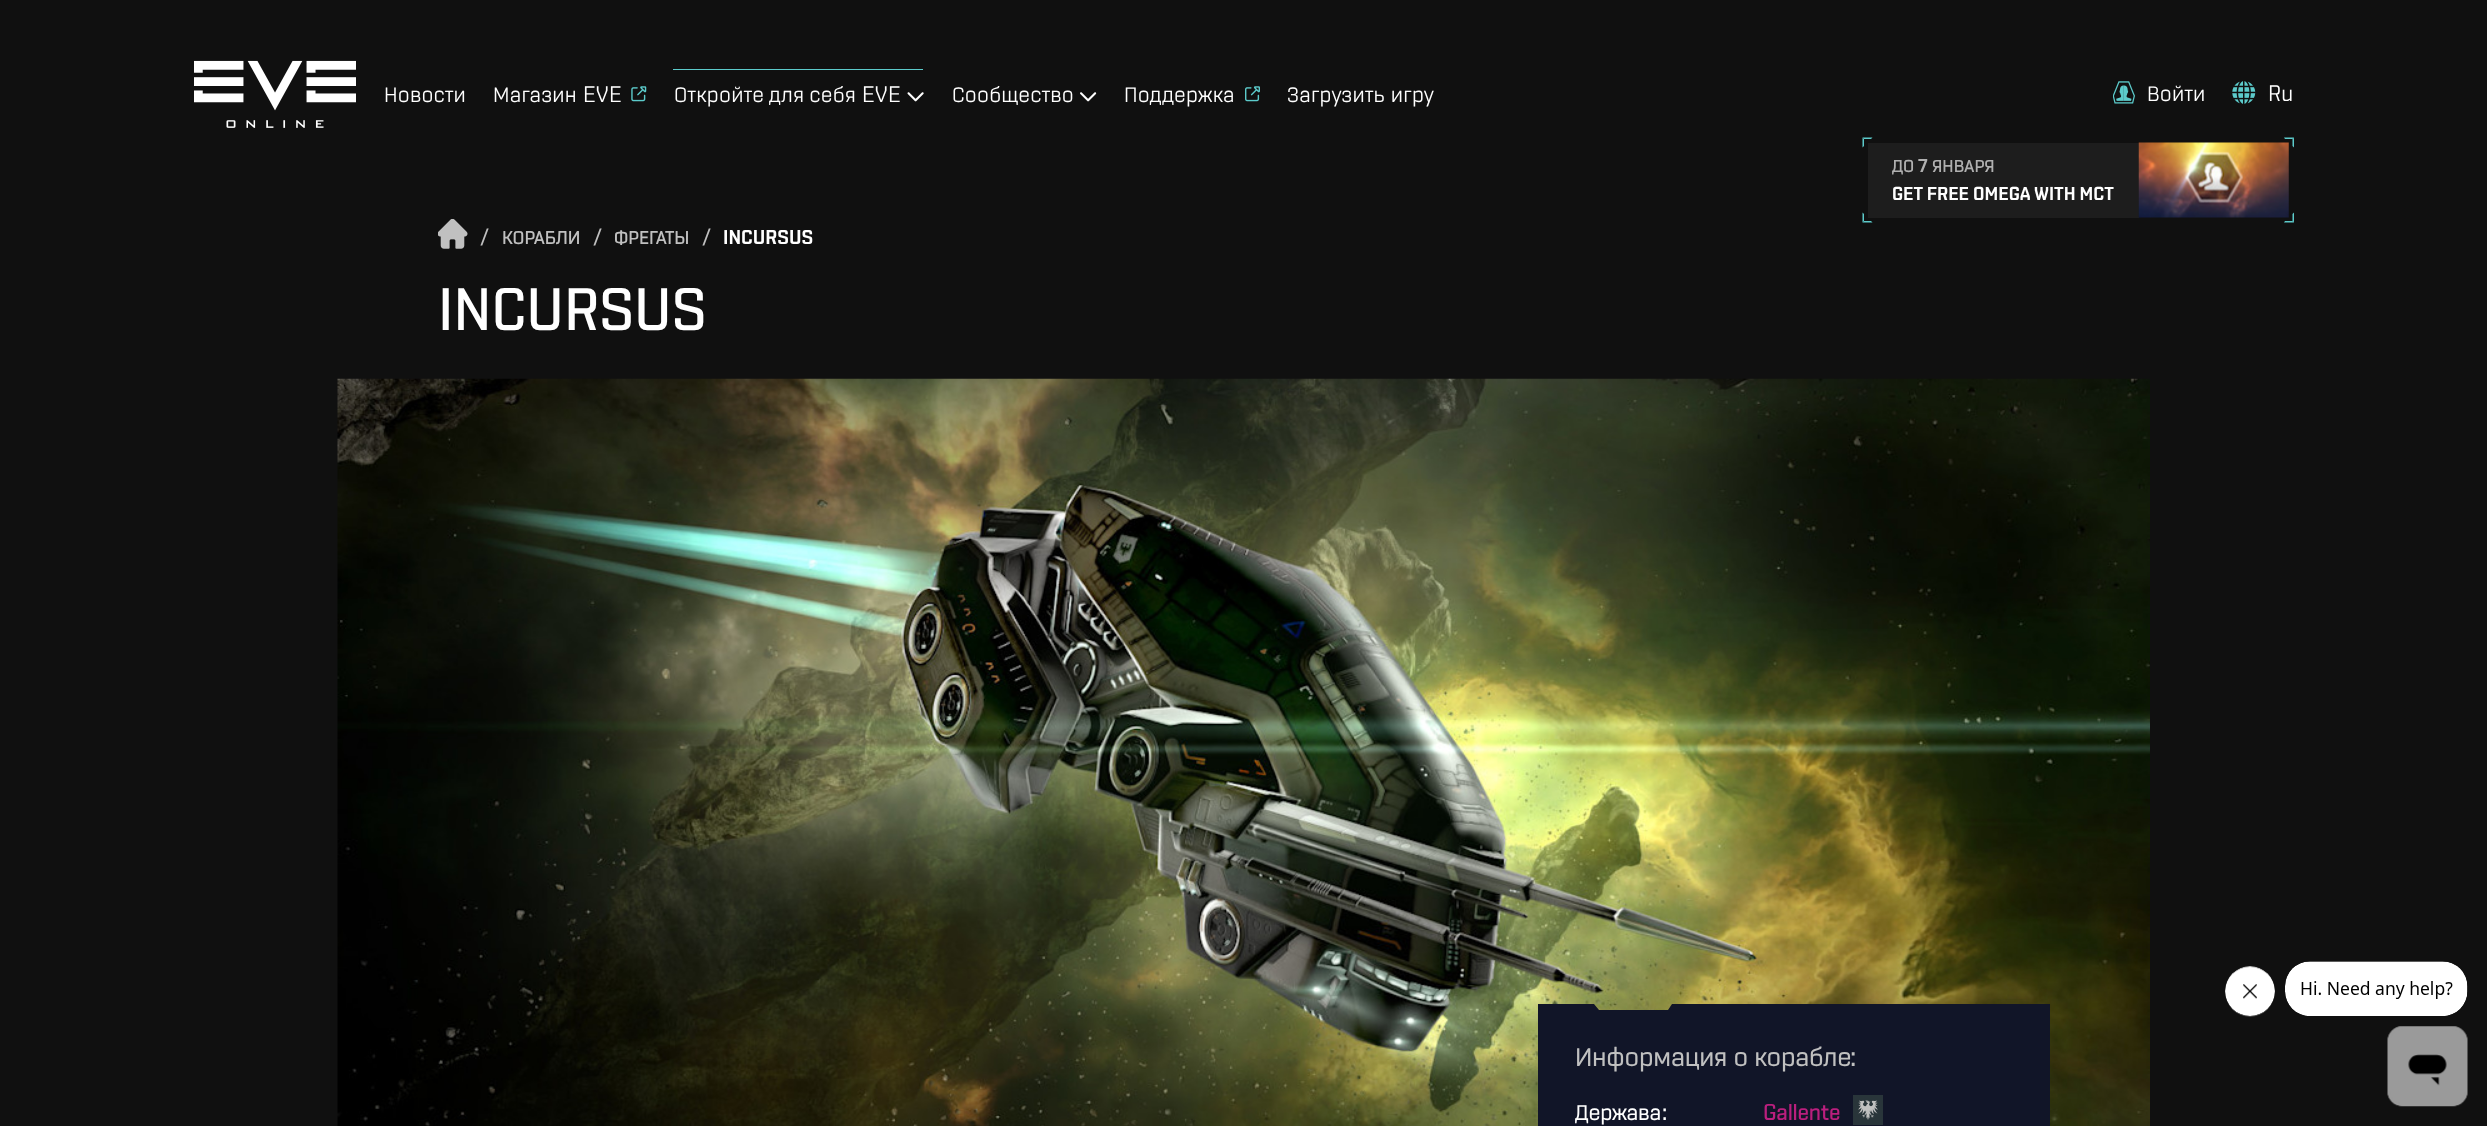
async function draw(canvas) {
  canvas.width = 2487;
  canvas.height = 1126;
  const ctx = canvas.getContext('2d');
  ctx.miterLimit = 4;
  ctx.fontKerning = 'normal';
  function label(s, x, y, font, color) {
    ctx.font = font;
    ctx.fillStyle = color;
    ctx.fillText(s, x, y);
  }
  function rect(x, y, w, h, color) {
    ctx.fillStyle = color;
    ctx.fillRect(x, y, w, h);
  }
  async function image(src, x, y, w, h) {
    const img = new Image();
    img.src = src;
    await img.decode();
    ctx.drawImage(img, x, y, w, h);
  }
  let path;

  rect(0, 0, 2487, 1126, '#101010');
  await image('assets/img1.png', 194, 60, 162, 68);
  ctx.letterSpacing = '0.25px';
  label('Новости', 384, 102, '22.5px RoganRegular', '#fff');
  label('Магазин', 493, 102, '22.5px RoganRegular', '#fff');
  label('EVE', 583, 102, '22.5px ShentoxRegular', '#fff');
  await image('assets/img2.png', 631, 86, 16, 16);
  rect(673, 69, 250, 1, '#5ccbcb');
  label('Откройте для себя', 674, 102, '22.5px RoganRegular', '#fff');
  label('EVE', 862, 102, '22.5px ShentoxRegular', '#fff');
  await image('assets/img3.png', 907, 92, 17, 10);
  label('Сообщество', 952, 102, '22.5px RoganRegular', '#fff');
  await image('assets/img4.png', 1080, 92, 17, 10);
  label('Поддержка', 1124, 102, '22.5px RoganRegular', '#fff');
  await image('assets/img5.png', 1245, 86, 15, 16);
  ctx.wordSpacing = '1px';
  label('Загрузить игру', 1287, 102, '22.5px RoganRegular', '#fff');
  await image('assets/img6.png', 2113, 81, 22, 23);
  ctx.wordSpacing = '0px';
  label('Войти', 2147, 101, '22.5px RoganRegular', '#fff');
  await image('assets/img7.png', 2232, 81, 24, 23);
  label('Ru', 2268, 101, '22.5px ShentoxRegular', '#fff');
  ctx.fillStyle = '#5ccbcb';
  path = new Path2D('M1862.5 137.5H1872.5L1871 139H1864Z');
  ctx.fill(path);
  path = new Path2D('M1862.5 147.5V137.5L1864 139V146Z');
  ctx.fill(path);
  path = new Path2D('M2284 137.5H2294L2292.5 139H2285Z');
  ctx.fill(path);
  path = new Path2D('M2294 137.5V147.5L2292.5 146V139Z');
  ctx.fill(path);
  rect(1868, 143, 271, 75, '#1d1d1d');
  ctx.letterSpacing = '0px';
  label('ДО', 1892, 172, '600 18.75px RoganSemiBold', '#b0b0b0');
  label('7', 1918, 172, '600 18.75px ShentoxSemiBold', '#b0b0b0');
  label('ЯНВАРЯ', 1932, 172, '600 18.75px RoganSemiBold', '#b0b0b0');
  label('GET FREE OMEGA WITH MCT', 1892, 200, '600 18.75px ShentoxSemiBold', '#fff');
  await image('assets/img8.png', 2138, 142, 151, 76);
  ctx.fillStyle = '#5ccbcb';
  path = new Path2D('M1872.5 222.5H1862.5L1864 221H1871Z');
  ctx.fill(path);
  path = new Path2D('M1862.5 222.5V212.5L1864 214V221Z');
  ctx.fill(path);
  path = new Path2D('M2294 212.5V222.5L2292.5 221V214Z');
  ctx.fill(path);
  path = new Path2D('M2294 222.5H2284L2285 221H2292.5Z');
  ctx.fill(path);
  await image('assets/img9.png', 438, 219, 30, 30);
  label('/', 480, 244, '500 20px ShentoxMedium', '#c0c0c0');
  label('КОРАБЛИ', 502, 244, '600 20px RoganSemiBold', '#c0c0c0');
  label('/', 593, 244, '500 20px ShentoxMedium', '#c0c0c0');
  label('ФРЕГАТЫ', 614, 244, '600 20px RoganSemiBold', '#c0c0c0');
  label('/', 702, 244, '500 20px ShentoxMedium', '#c0c0c0');
  label('INCURSUS', 723, 244, '600 20px ShentoxSemiBold', '#fff');
  label('INCURSUS', 438, 330, '500 60px ShentoxMedium', '#fff');
  await image('assets/img10.png', 337, 378, 1813, 748);
  ctx.fillStyle = '#111528';
  path = new Path2D('M1538 1004H1594L1599 1010H1668L1672 1004H2050V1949H1540L1538 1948Z');
  ctx.fill(path);
  ctx.letterSpacing = '-0.25px';
  ctx.wordSpacing = '1px';
  label('Информация о корабле', 1575, 1066, '500 27.5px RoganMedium', '#c0c0c0');
  ctx.wordSpacing = '0px';
  label(':', 1850, 1066, '500 27.5px ShentoxMedium', '#c0c0c0');
  label('Держава', 1575, 1120, '500 23px RoganMedium', '#fff');
  label(':', 1662, 1120, '500 23px ShentoxMedium', '#fff');
  label('Gallente', 1763, 1120, '500 23px ShentoxMedium', '#ba1f7e');
  rect(1853, 1095, 30, 30, '#29353a');
  await image('assets/img11.png', 1858, 1100, 20, 20);
  await image('assets/img12.png', 2225, 966, 50, 51);
  await image('assets/img13.png', 2285, 961, 183, 55);
  await image('assets/img14.png', 2387, 1026, 81, 81);
}

draw(document.querySelector('canvas'));
